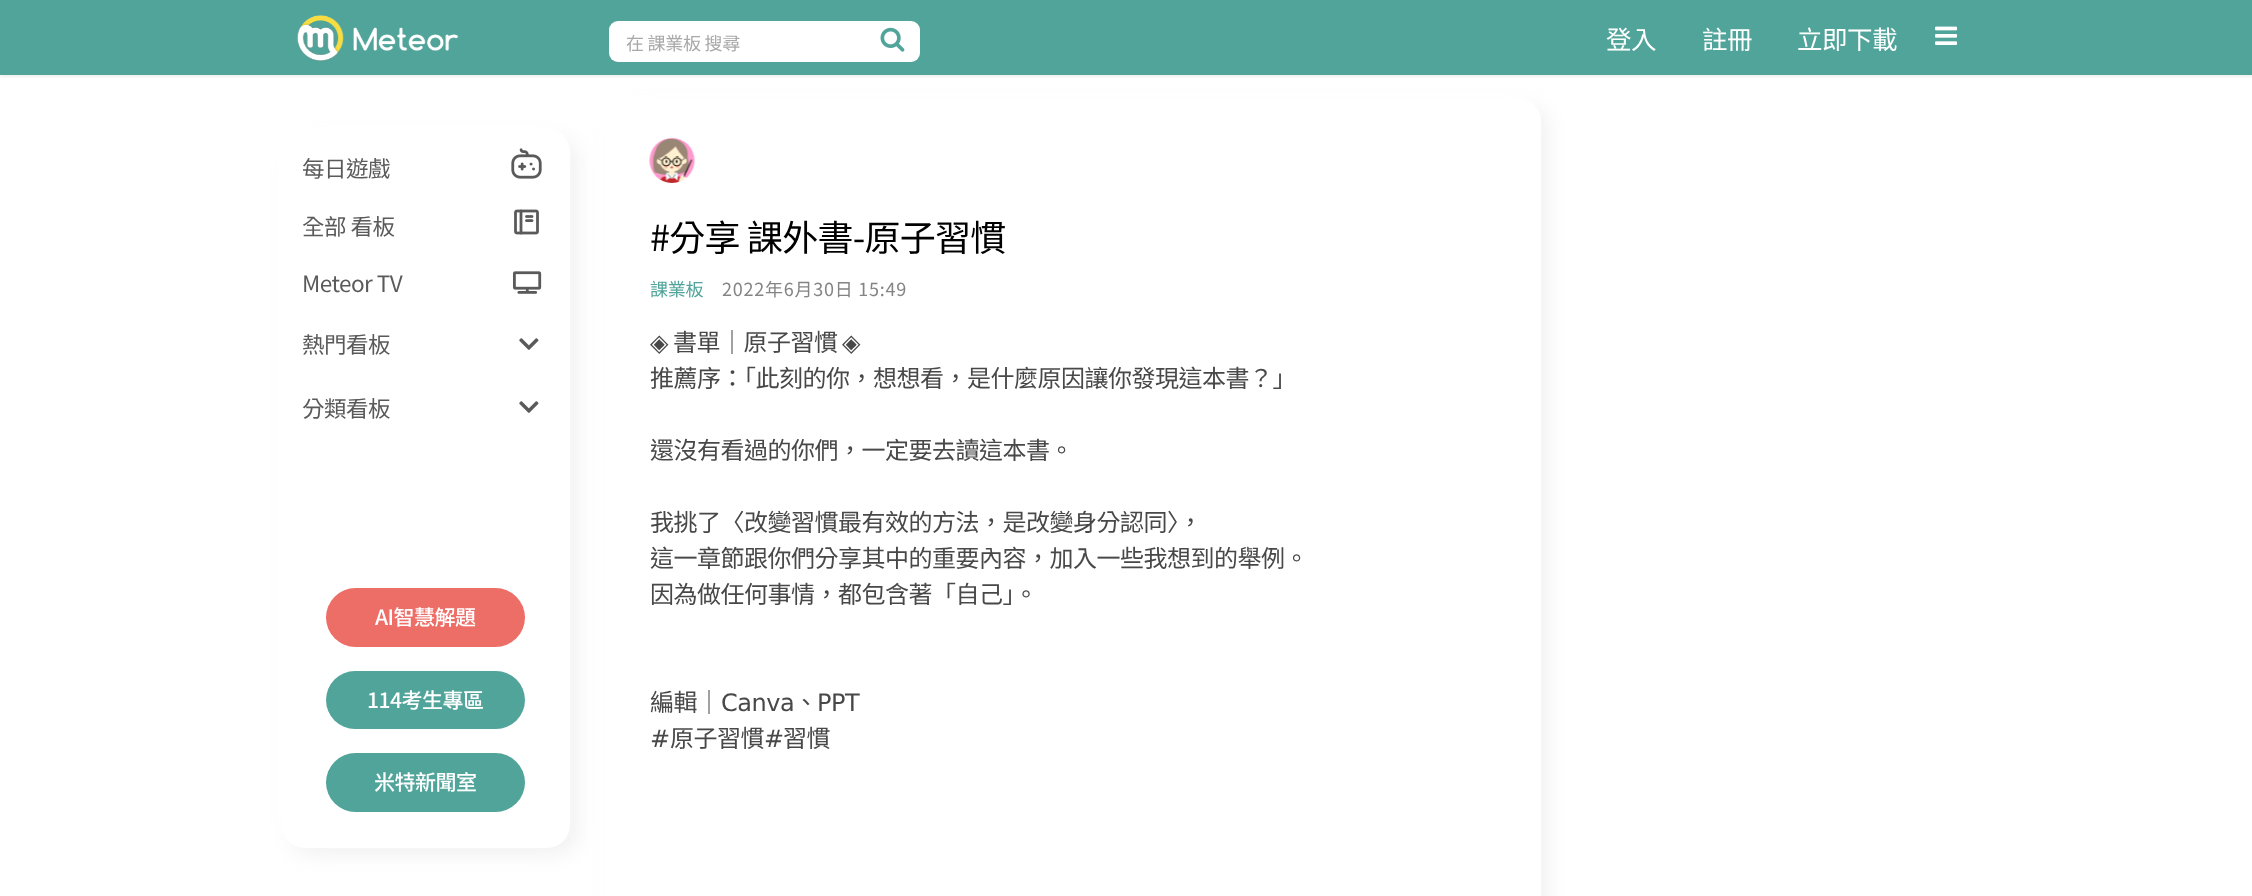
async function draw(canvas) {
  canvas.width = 2252;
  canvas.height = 896;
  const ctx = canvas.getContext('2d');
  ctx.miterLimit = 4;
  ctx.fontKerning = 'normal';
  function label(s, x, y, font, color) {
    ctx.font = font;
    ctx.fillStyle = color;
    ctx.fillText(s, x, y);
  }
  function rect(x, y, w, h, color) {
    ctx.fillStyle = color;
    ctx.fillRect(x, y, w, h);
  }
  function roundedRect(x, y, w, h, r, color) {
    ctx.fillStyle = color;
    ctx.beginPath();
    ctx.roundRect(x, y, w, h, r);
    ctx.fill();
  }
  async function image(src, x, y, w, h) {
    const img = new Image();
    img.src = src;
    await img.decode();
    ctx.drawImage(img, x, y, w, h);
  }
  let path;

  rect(0, 0, 2252, 896, '#fff');
  ctx.fillStyle = '#f1f0f0';
  ctx.filter = 'blur(1.5px)';
  ctx.beginPath();
  ctx.rect(0, 2, 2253, 75);
  ctx.fill();
  ctx.filter = 'none';
  ctx.fillStyle = '#f0f0f0e6';
  ctx.filter = 'blur(10px)';
  ctx.beginPath();
  ctx.roundRect(612, 105, 936, 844, 23);
  ctx.fill();
  ctx.filter = 'none';
  ctx.fillStyle = '#ffffffe6';
  ctx.filter = 'blur(7.5px)';
  ctx.beginPath();
  ctx.roundRect(597, 90, 936, 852, 23);
  ctx.fill();
  ctx.filter = 'none';
  rect(0, 0, 2252, 75, '#51a49a');
  await image('assets/img1.png', 297, 15, 162, 47);
  roundedRect(609, 21, 311, 41, 9, '#fff');
  ctx.letterSpacing = '-0.25px';
  label('在 課業板 搜尋', 626, 50, '18px Noto Sans TC', '#a9a9a9');
  await image('assets/img2.png', 880, 27, 25, 25);
  ctx.letterSpacing = '-0.5px';
  label('登入', 1606, 49, '25.5px Noto Sans TC', '#fff');
  label('註冊', 1702, 49, '25.5px Noto Sans TC', '#fff');
  label('立即下載', 1797, 49, '25.5px Noto Sans TC', '#fff');
  await image('assets/img3.png', 1935, 26, 23, 19);
  path = new Path2D('M628 98H1518C1530.5 98 1541 108.5 1541 121V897H605V121C605 108.5 615.5 98 628 98Z');
  ctx.fill(path);
  ctx.fillStyle = '#f0f0f0e6';
  ctx.filter = 'blur(10px)';
  ctx.beginPath();
  ctx.roundRect(290, 137, 288, 718, 23);
  ctx.fill();
  ctx.filter = 'none';
  ctx.fillStyle = '#ffffffe6';
  ctx.filter = 'blur(7.5px)';
  ctx.beginPath();
  ctx.roundRect(275, 122, 288, 718, 23);
  ctx.fill();
  ctx.filter = 'none';
  roundedRect(282, 129, 288, 719, 23, '#fff');
  label('每日遊戲', 302, 177, '22.5px Noto Sans TC', '#5a5a5a');
  await image('assets/img4.png', 511, 148, 31, 31);
  label('全部 看板', 302, 235, '22.5px Noto Sans TC', '#5a5a5a');
  await image('assets/img5.png', 514, 209, 25, 26);
  label('Meteor TV', 302, 292, '22.5px Noto Sans TC', '#5a5a5a');
  await image('assets/img6.png', 513, 271, 29, 23);
  label('熱門看板', 302, 353, '22.5px Noto Sans TC', '#5a5a5a');
  await image('assets/img7.png', 519, 338, 20, 12);
  label('分類看板', 302, 417, '22.5px Noto Sans TC', '#5a5a5a');
  await image('assets/img7.png', 519, 401, 20, 12);
  roundedRect(326, 588, 199, 59, 29.5, '#ec6e67');
  label('AI智慧解題', 375, 625, '500 21px Noto Sans TC', '#fff');
  roundedRect(326, 671, 199, 58, 29, '#51a49a');
  label('114考生專區', 367, 708, '500 21px Noto Sans TC', '#fff');
  roundedRect(326, 753, 199, 59, 29.5, '#51a49a');
  label('米特新聞室', 374, 790, '500 21px Noto Sans TC', '#fff');
  await image('assets/img8.png', 649, 138, 46, 45);
  ctx.letterSpacing = '-0.75px';
  label('#分享 課外書-原子習慣', 650, 251, '36px Noto Sans TC', '#000');
  ctx.letterSpacing = '-0.25px';
  label('課業板', 650, 296, '18px Noto Sans TC', '#51a49a');
  ctx.letterSpacing = '0.75px';
  label('2022年6月30日 15:49', 722, 296, '18px Noto Sans TC', '#848484');
  ctx.letterSpacing = '-0.5px';
  label('◈', 650, 351, '24px DejaVu Sans', '#484848');
  label('書單｜原子習慣', 673, 351, '24px Noto Sans TC', '#484848');
  label('◈', 842, 351, '24px DejaVu Sans', '#484848');
  label('推薦序：「此刻的你，想想看，是什麼原因讓你發現這本書？」', 650, 387, '24px Noto Sans TC', '#484848');
  label('還沒有看過的你們，一定要去讀這本書。', 650, 459, '24px Noto Sans TC', '#484848');
  label('我挑了〈改變習慣最有效的方法，是改變身分認同〉，', 650, 531, '24px Noto Sans TC', '#484848');
  label('這一章節跟你們分享其中的重要內容，加入一些我想到的舉例。', 650, 567, '24px Noto Sans TC', '#484848');
  label('因為做任何事情，都包含著「自己」。', 650, 603, '24px Noto Sans TC', '#484848');
  label('編輯｜', 650, 711, '24px Noto Sans TC', '#484848');
  label('Canva', 721, 711, '24px DejaVu Sans', '#484848');
  label('、', 794, 711, '24px Noto Sans TC', '#484848');
  label('PPT', 817, 711, '24px DejaVu Sans', '#484848');
  label('#', 650, 747, '24px DejaVu Sans', '#484848');
  label('原子習慣', 670, 747, '24px Noto Sans TC', '#484848');
  label('#', 764, 747, '24px DejaVu Sans', '#484848');
  label('習慣', 783, 747, '24px Noto Sans TC', '#484848');
}

draw(document.querySelector('canvas'));
